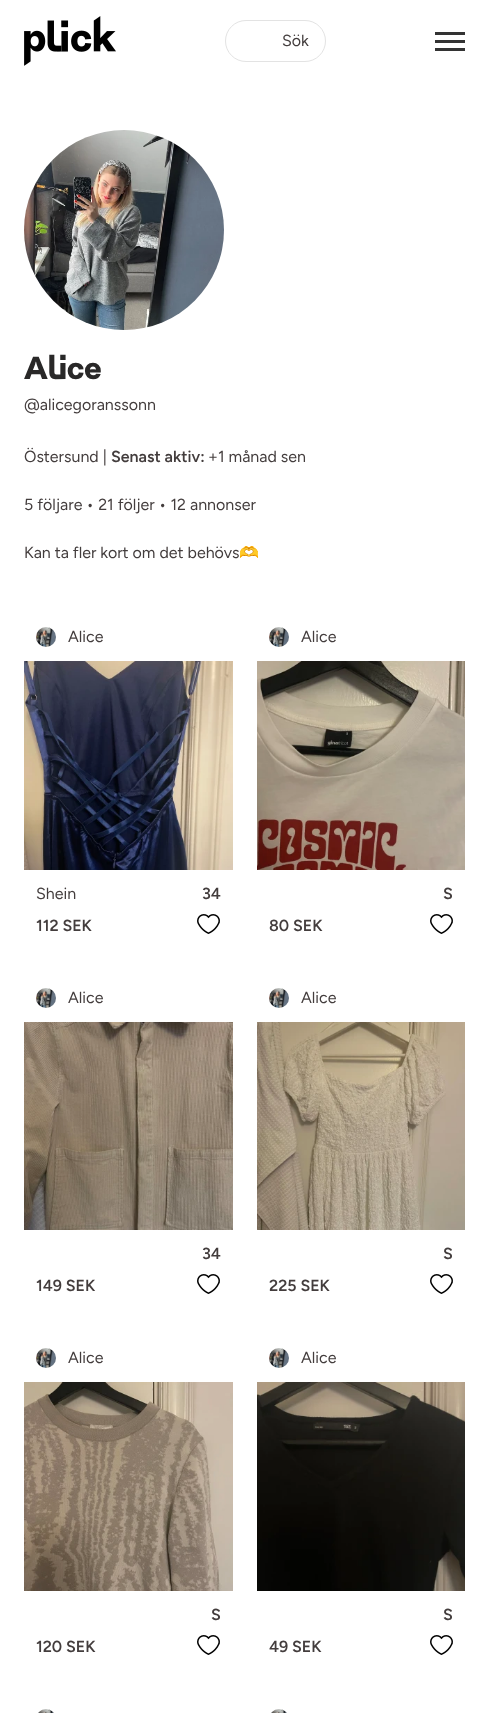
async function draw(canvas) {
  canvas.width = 489;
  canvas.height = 1713;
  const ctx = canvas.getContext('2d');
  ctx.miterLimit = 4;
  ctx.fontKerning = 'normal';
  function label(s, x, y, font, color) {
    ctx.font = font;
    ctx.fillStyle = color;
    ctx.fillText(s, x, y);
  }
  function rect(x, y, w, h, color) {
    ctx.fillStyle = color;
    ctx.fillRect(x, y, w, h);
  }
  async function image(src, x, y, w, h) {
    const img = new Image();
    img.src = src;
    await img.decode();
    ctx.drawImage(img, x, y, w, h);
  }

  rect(0, 0, 489, 1713, '#fff');
  await image('assets/img1.png', 24, 16, 92, 50);
  ctx.beginPath();
  ctx.roundRect(225.5, 20.5, 100, 41, 20.5);
  ctx.strokeStyle = '#e3e3e3';
  ctx.stroke();
  label('Sök', 282, 46, '16px Figtree', '#433d3d');
  rect(435, 40, 30, 3, '#333');
  rect(435, 32, 30, 3, '#333');
  rect(435, 48, 30, 3, '#333');
  await image('assets/img2.png', 24, 130, 200, 200);
  label('Alice', 24, 379, 'bold 32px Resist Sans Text', '#292828');
  label('@alicegoranssonn', 24, 410, '16px Figtree', '#433d3d');
  label('Östersund |', 24, 462, '16px Figtree', '#433d3d');
  label('Senast aktiv:', 111, 462, '600 16px Figtree', '#433d3d');
  label('+1 månad sen', 208, 462, '16px Figtree', '#433d3d');
  label('5 följare • 21 följer • 12 annonser', 24, 510, '16px Figtree', '#433d3d');
  label('Kan ta fler kort om det behövs', 24, 558, '16px Figtree', '#433d3d');
  label('🫶', 239, 558, '16px Noto Color Emoji', '#433d3d');
  await image('assets/img3.png', 36, 627, 20, 20);
  label('Alice', 68, 642, '16px Figtree', '#433d3d');
  await image('assets/img4.png', 24, 661, 209, 209);
  label('Shein', 36, 899, '16px Figtree', '#433d3d');
  label('34', 202, 899, '600 16px Figtree', '#433d3d');
  label('112 SEK', 36, 931, '600 16px Figtree', '#433d3d');
  await image('assets/img5.png', 197, 914, 23, 20);
  await image('assets/img3.png', 269, 627, 20, 20);
  label('Alice', 301, 642, '16px Figtree', '#433d3d');
  await image('assets/img6.png', 257, 661, 208, 209);
  label('S', 443, 899, '600 16px Figtree', '#433d3d');
  label('80 SEK', 269, 931, '600 16px Figtree', '#433d3d');
  await image('assets/img5.png', 430, 914, 23, 20);
  await image('assets/img3.png', 36, 988, 20, 20);
  label('Alice', 68, 1003, '16px Figtree', '#433d3d');
  await image('assets/img7.png', 24, 1022, 209, 208);
  label('34', 202, 1259, '600 16px Figtree', '#433d3d');
  label('149 SEK', 36, 1291, '600 16px Figtree', '#433d3d');
  await image('assets/img5.png', 197, 1274, 23, 20);
  await image('assets/img3.png', 269, 988, 20, 20);
  label('Alice', 301, 1003, '16px Figtree', '#433d3d');
  await image('assets/img8.png', 257, 1022, 208, 208);
  label('S', 443, 1259, '600 16px Figtree', '#433d3d');
  label('225 SEK', 269, 1291, '600 16px Figtree', '#433d3d');
  await image('assets/img5.png', 430, 1274, 23, 20);
  await image('assets/img3.png', 36, 1348, 20, 20);
  label('Alice', 68, 1363, '16px Figtree', '#433d3d');
  await image('assets/img9.png', 24, 1382, 209, 209);
  label('S', 211, 1620, '600 16px Figtree', '#433d3d');
  label('120 SEK', 36, 1652, '600 16px Figtree', '#433d3d');
  await image('assets/img5.png', 197, 1635, 23, 20);
  await image('assets/img3.png', 269, 1348, 20, 20);
  label('Alice', 301, 1363, '16px Figtree', '#433d3d');
  await image('assets/img10.png', 257, 1382, 208, 209);
  label('S', 443, 1620, '600 16px Figtree', '#433d3d');
  label('49 SEK', 269, 1652, '600 16px Figtree', '#433d3d');
  await image('assets/img5.png', 430, 1635, 23, 20);
  await image('assets/img11.png', 38, 1709, 16, 4);
  await image('assets/img11.png', 271, 1709, 16, 4);
}

draw(document.querySelector('canvas'));
